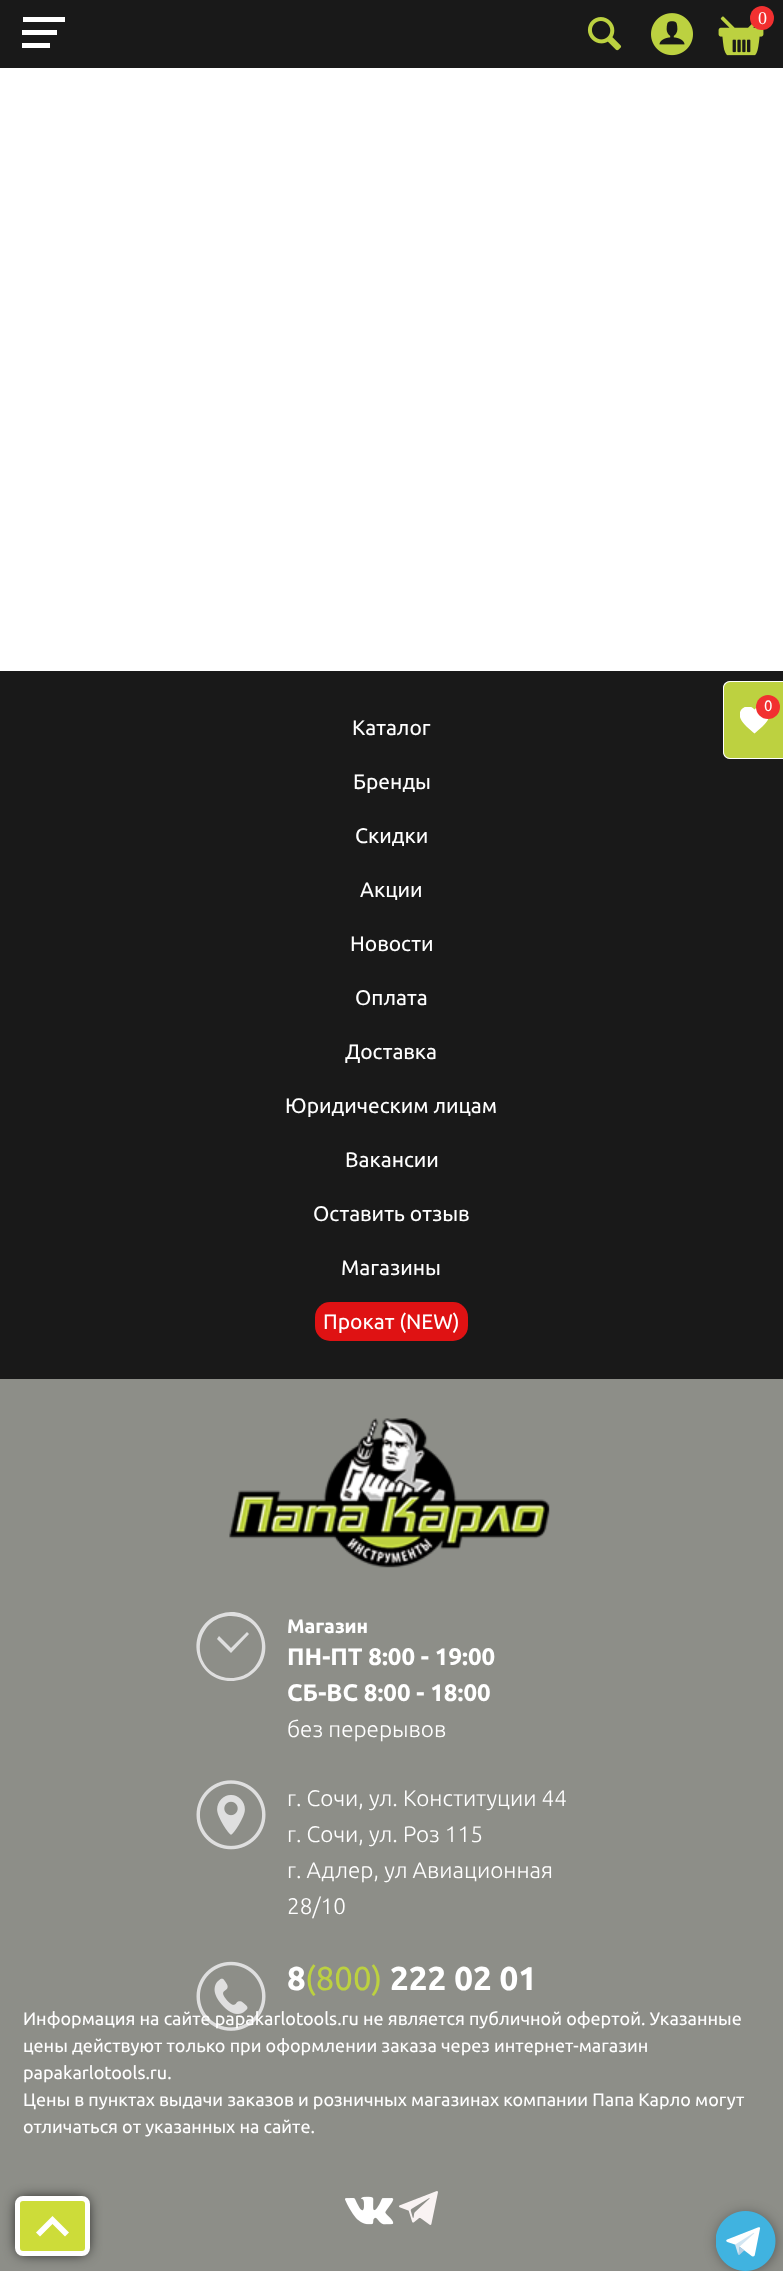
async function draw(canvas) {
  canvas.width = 783;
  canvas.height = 2271;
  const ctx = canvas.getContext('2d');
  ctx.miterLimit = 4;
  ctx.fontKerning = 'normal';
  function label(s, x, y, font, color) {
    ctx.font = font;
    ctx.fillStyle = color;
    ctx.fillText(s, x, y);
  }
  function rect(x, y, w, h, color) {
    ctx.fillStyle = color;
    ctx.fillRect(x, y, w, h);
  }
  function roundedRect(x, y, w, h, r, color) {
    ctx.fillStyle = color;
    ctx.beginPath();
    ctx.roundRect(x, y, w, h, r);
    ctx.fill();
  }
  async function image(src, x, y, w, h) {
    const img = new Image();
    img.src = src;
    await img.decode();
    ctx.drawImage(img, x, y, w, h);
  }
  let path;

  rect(0, 0, 783, 2271, '#fff');
  rect(0, 0, 783, 68, '#191919');
  ctx.fillStyle = '#fff';
  path = new Path2D('M23 17H65V22H23ZM22 30H57V35H22ZM22 43H50V48H22Z');
  ctx.fill(path);
  await image('assets/img1.png', 587, 17, 35, 34);
  await image('assets/img2.png', 651, 13, 42, 43);
  await image('assets/img3.png', 718, 16, 46, 40);
  ctx.fillStyle = '#f23030';
  ctx.beginPath();
  ctx.arc(762, 18, 12, 0, 2 * Math.PI);
  ctx.fill();
  label('0', 758, 24, '18px Liberation Serif', '#fff');
  rect(0, 671, 783, 708, '#191919');
  label('Каталог', 352, 735, '21px Ubuntu', '#fff');
  label('Бренды', 353, 789, '21px Ubuntu', '#fff');
  label('Скидки', 355, 843, '21px Ubuntu', '#fff');
  label('Акции', 360, 897, '21px Ubuntu', '#fff');
  label('Новости', 350, 951, '21px Ubuntu', '#fff');
  label('Оплата', 355, 1005, '21px Ubuntu', '#fff');
  label('Доставка', 345, 1059, '21px Ubuntu', '#fff');
  label('Юридическим лицам', 285, 1113, '21px Ubuntu', '#fff');
  label('Вакансии', 345, 1167, '21px Ubuntu', '#fff');
  label('Оставить отзыв', 313, 1221, '21px Ubuntu', '#fff');
  label('Магазины', 341, 1275, '21px Ubuntu', '#fff');
  roundedRect(315, 1302, 153, 39, 15, '#df1213');
  label('Прокат (NEW)', 323, 1329, '21px Ubuntu', '#fff');
  rect(0, 1379, 783, 892, '#8d8e88');
  await image('assets/img4.png', 229, 1418, 321, 150);
  ctx.fillStyle = '#dfdfdf';
  path = new Path2D('M231 1616C238 1616 244 1618 250 1622C273 1640 261 1678 231 1678C224 1678 218 1676 212 1672C189 1654 201 1616 231 1616ZM231 1612C224 1612 216 1615 210 1619C184 1639 198 1681 231 1681C238 1681 246 1679 252 1674C278 1655 264 1612 231 1612ZM247 1632L249 1634L231 1653L217 1639L219 1636L231 1648Z');
  ctx.fill(path);
  label('Магазин', 287, 1633, 'bold 19.5px Ubuntu', '#fff');
  label('ПН-ПТ 8:00 - 19:00', 287, 1665, 'bold 24px Ubuntu', '#fff');
  label('СБ-ВС 8:00 - 18:00', 287, 1701, 'bold 24px Ubuntu', '#fff');
  label('без перерывов', 287, 1737, '300 22.5px Ubuntu', '#fff');
  await image('assets/img5.png', 196, 1780, 70, 70);
  label('г. Сочи, ул. Конституции 44', 287, 1806, '300 22.5px Ubuntu', '#fff');
  label('г. Сочи, ул. Роз 115', 287, 1842, '300 22.5px Ubuntu', '#fff');
  label('г. Адлер, ул Авиационная', 287, 1878, '300 22.5px Ubuntu', '#fff');
  label('28/10', 287, 1914, '300 22.5px Ubuntu', '#fff');
  await image('assets/img6.png', 196, 1961, 70, 70);
  label('8', 287, 1990, 'bold 33px Ubuntu', '#fff');
  label('(800)', 305, 1990, '33px Ubuntu', '#bcd140');
  label('222 02 01', 390, 1990, 'bold 33px Ubuntu', '#fff');
  label('Информация на сайте papakarlotools.ru не является публичной офертой. Указанные', 23, 2025, '18px Ubuntu', '#fff');
  label('цены действуют только при оформлении заказа через интернет-магазин', 23, 2052, '18px Ubuntu', '#fff');
  label('papakarlotools.ru.', 23, 2079, '18px Ubuntu', '#fff');
  label('Цены в пунктах выдачи заказов и розничных магазинах компании Папа Карло могут', 23, 2106, '18px Ubuntu', '#fff');
  label('отличаться от указанных на сайте.', 23, 2133, '18px Ubuntu', '#fff');
  await image('assets/img7.png', 345, 2196, 49, 29);
  await image('assets/img8.png', 399, 2191, 39, 34);
  ctx.fillStyle = '#bdd140';
  ctx.beginPath();
  ctx.roundRect(723, 681, 60, 78, [8, 0, 0, 8]);
  ctx.fill();
  ctx.fillStyle = '#fff';
  path = new Path2D('M730 681H783V759H730C726 759 723 756 723 752V688C723 684 726 681 730 681ZM730 682H783V758H730C727 758 724 755 724 752V688C724 685 727 682 730 682Z');
  ctx.fill(path, 'evenodd');
  ctx.save();
  ctx.beginPath();
  ctx.rect(740, 707, 30, 27);
  ctx.clip();
  path = new Path2D('M754.5 733.5C750 729.5 743 724.5 740.5 718.5C736.5 709 748 702 754.5 709.5C761 702 772.5 709 768.5 718.5C766 724.5 759 729.5 754.5 733.5Z');
  ctx.fill(path);
  ctx.restore();
  ctx.fillStyle = '#f23030';
  ctx.beginPath();
  ctx.arc(768, 707, 12, 0, 2 * Math.PI);
  ctx.fill();
  label('0', 764, 711, '15px Ubuntu', '#fff');
  ctx.fillStyle = '#000';
  ctx.filter = 'blur(7px)';
  ctx.beginPath();
  ctx.roundRect(18, 2199, 69, 54, 5);
  ctx.fill();
  ctx.filter = 'none';
  ctx.fillStyle = '#cddc39';
  ctx.beginPath();
  ctx.roundRect(17.5, 2198.5, 70, 55, 5.5);
  ctx.fill();
  ctx.strokeStyle = '#fff';
  ctx.lineWidth = 5;
  ctx.stroke();
  ctx.fillStyle = '#fff';
  path = new Path2D('M40 2236.5L36 2232.5L52.5 2216L69 2232.5L65 2236.5L52.5 2224Z');
  ctx.fill(path);
  ctx.fillStyle = '#00000099';
  ctx.filter = 'blur(7.5px)';
  ctx.beginPath();
  ctx.roundRect(720, 2216, 53, 52, 26);
  ctx.fill();
  ctx.filter = 'none';
  await image('assets/img9.png', 716, 2211, 60, 60);
}

draw(document.querySelector('canvas'));
